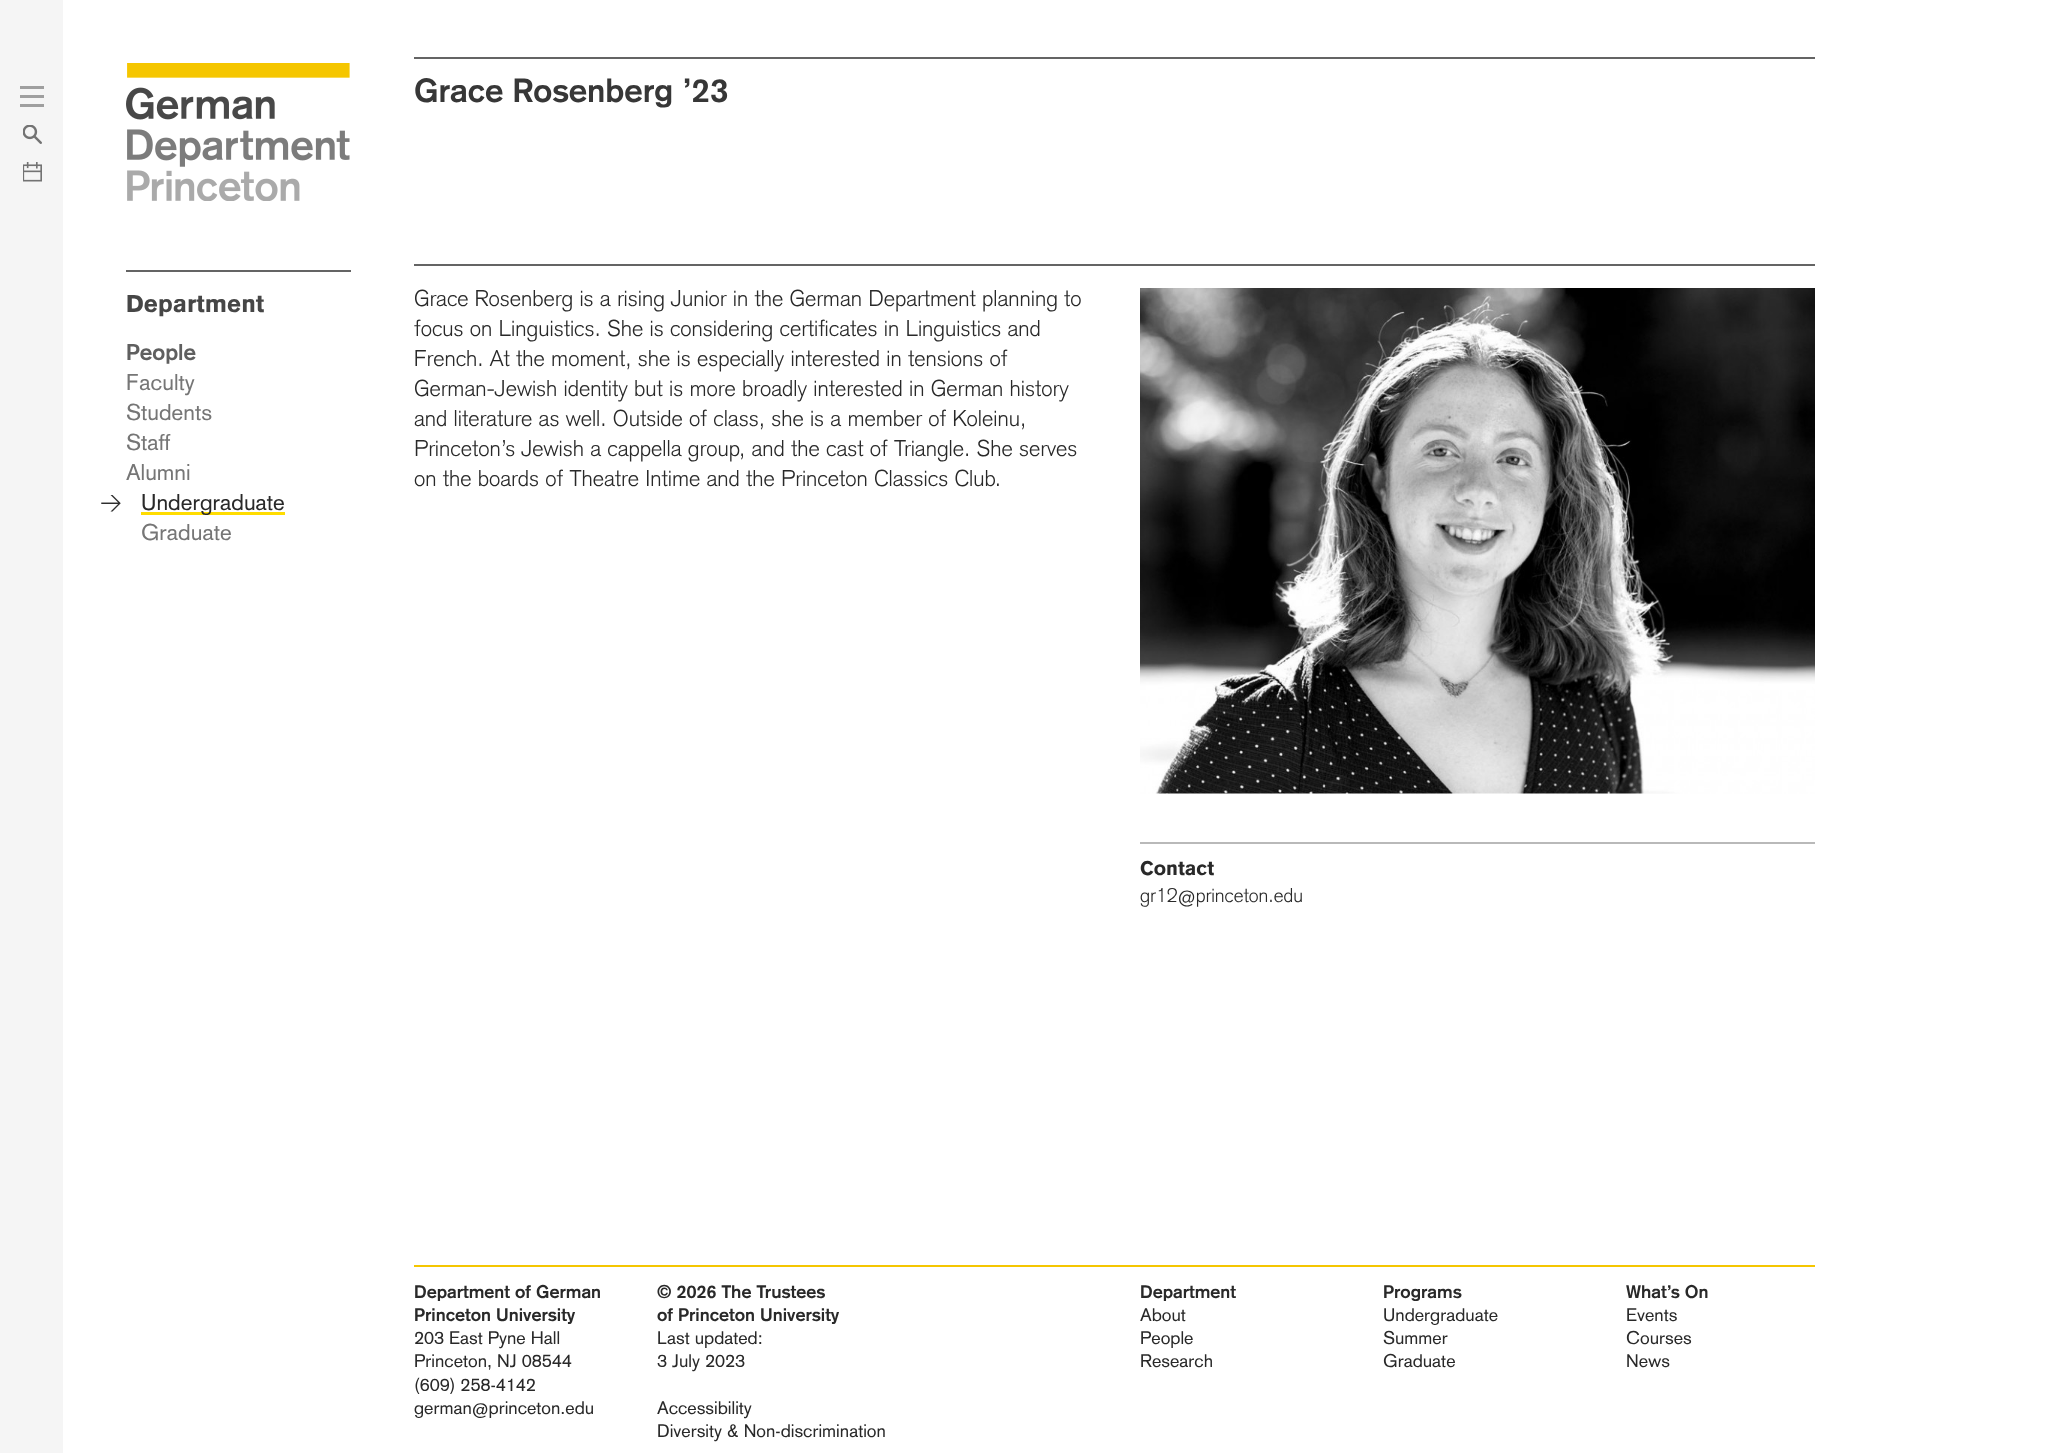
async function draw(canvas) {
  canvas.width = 2053;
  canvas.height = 1453;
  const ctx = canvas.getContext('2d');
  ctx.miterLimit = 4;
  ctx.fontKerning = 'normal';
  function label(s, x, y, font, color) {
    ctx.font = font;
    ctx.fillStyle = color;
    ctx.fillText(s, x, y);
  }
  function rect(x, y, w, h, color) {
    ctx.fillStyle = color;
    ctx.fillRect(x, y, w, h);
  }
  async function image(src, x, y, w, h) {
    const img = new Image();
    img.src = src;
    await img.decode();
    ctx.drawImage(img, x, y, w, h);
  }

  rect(0, 0, 2053, 1453, '#fff');
  rect(0, 0, 63, 1453, '#f5f5f5');
  rect(20, 86, 24, 3, '#9f9f9f');
  rect(20, 95, 24, 3, '#9f9f9f');
  rect(20, 104, 24, 3, '#9f9f9f');
  await image('assets/img1.png', 23, 125, 19, 19);
  await image('assets/img2.png', 23, 162, 19, 20);
  await image('assets/img3.png', 126, 63, 224, 138);
  rect(126, 270, 225, 2, '#646464');
  label('Department', 126, 312, '900 24px "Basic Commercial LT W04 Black"', '#464646');
  label('People', 126, 360, 'bold 22.5px "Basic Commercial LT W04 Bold"', '#5f5f5f');
  label('Faculty', 126, 390, '22.5px "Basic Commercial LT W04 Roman"', '#767676');
  label('Students', 126, 420, '22.5px "Basic Commercial LT W04 Roman"', '#767676');
  label('Staff', 126, 450, '22.5px "Basic Commercial LT W04 Roman"', '#767676');
  label('Alumni', 126, 480, '22.5px "Basic Commercial LT W04 Roman"', '#767676');
  await image('assets/img4.png', 101, 495, 20, 17);
  rect(141, 512, 144, 3, '#ffdc00');
  label('Undergraduate', 141, 510, '22.5px "Basic Commercial LT W04 Roman"', '#292929');
  label('Graduate', 141, 540, '22.5px "Basic Commercial LT W04 Roman"', '#767676');
  rect(414, 57, 1401, 2, '#646464');
  rect(414, 264, 1401, 2, '#646464');
  label('Grace Rosenberg ’23', 414, 102, 'bold 33px "Basic Commercial LT W04 Bold"', '#373737');
  label('Grace Rosenberg is a rising Junior in the German Department planning to', 414, 306, '300 22.5px "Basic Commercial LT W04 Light"', '#292929');
  label('focus on Linguistics. She is considering certificates in Linguistics and', 414, 336, '300 22.5px "Basic Commercial LT W04 Light"', '#292929');
  label('French. At the moment, she is especially interested in tensions of', 414, 366, '300 22.5px "Basic Commercial LT W04 Light"', '#292929');
  label('German-Jewish identity but is more broadly interested in German history', 414, 396, '300 22.5px "Basic Commercial LT W04 Light"', '#292929');
  label('and literature as well. Outside of class, she is a member of Koleinu,', 414, 426, '300 22.5px "Basic Commercial LT W04 Light"', '#292929');
  label('Princeton’s Jewish a cappella group, and the cast of Triangle. She serves', 414, 456, '300 22.5px "Basic Commercial LT W04 Light"', '#292929');
  label('on the boards of Theatre Intime and the Princeton Classics Club.', 414, 486, '300 22.5px "Basic Commercial LT W04 Light"', '#292929');
  await image('assets/img5.png', 1140, 288, 675, 506);
  rect(1140, 842, 675, 2, '#b9b9b9');
  label('Contact', 1140, 875, '900 19.5px "Basic Commercial LT W04 Black"', '#292929');
  label('gr12@princeton.edu', 1140, 902, '300 19.5px "Basic Commercial LT W04 Light"', '#292929');
  rect(414, 1265, 1401, 2, '#f5c600');
  label('Department of German', 414, 1298, 'bold 18px "Basic Commercial LT W04 Bold"', '#292929');
  label('Princeton University', 414, 1321, 'bold 18px "Basic Commercial LT W04 Bold"', '#292929');
  label('203 East Pyne Hall', 414, 1344, '18px "Basic Commercial LT W04 Roman"', '#292929');
  label('Princeton, NJ 08544', 414, 1367, '18px "Basic Commercial LT W04 Roman"', '#292929');
  label('(609) 258-4142', 414, 1391, '18px "Basic Commercial LT W04 Roman"', '#292929');
  label('german@princeton.edu', 414, 1414, '18px "Basic Commercial LT W04 Roman"', '#292929');
  label('© 2026 The Trustees', 657, 1298, 'bold 18px "Basic Commercial LT W04 Bold"', '#292929');
  label('of Princeton University', 657, 1321, 'bold 18px "Basic Commercial LT W04 Bold"', '#292929');
  label('Last updated:', 657, 1344, '18px "Basic Commercial LT W04 Roman"', '#292929');
  label('3 July 2023', 657, 1367, '18px "Basic Commercial LT W04 Roman"', '#292929');
  label('Accessibility', 657, 1414, '18px "Basic Commercial LT W04 Roman"', '#292929');
  label('Diversity & Non-discrimination', 657, 1437, '18px "Basic Commercial LT W04 Roman"', '#292929');
  label('Department', 1140, 1298, 'bold 18px "Basic Commercial LT W04 Bold"', '#292929');
  label('About', 1140, 1321, '18px "Basic Commercial LT W04 Roman"', '#292929');
  label('People', 1140, 1344, '18px "Basic Commercial LT W04 Roman"', '#292929');
  label('Research', 1140, 1367, '18px "Basic Commercial LT W04 Roman"', '#292929');
  label('Programs', 1383, 1298, 'bold 18px "Basic Commercial LT W04 Bold"', '#292929');
  label('Undergraduate', 1383, 1321, '18px "Basic Commercial LT W04 Roman"', '#292929');
  label('Summer', 1383, 1344, '18px "Basic Commercial LT W04 Roman"', '#292929');
  label('Graduate', 1383, 1367, '18px "Basic Commercial LT W04 Roman"', '#292929');
  label('What’s On', 1626, 1298, 'bold 18px "Basic Commercial LT W04 Bold"', '#292929');
  label('Events', 1626, 1321, '18px "Basic Commercial LT W04 Roman"', '#292929');
  label('Courses', 1626, 1344, '18px "Basic Commercial LT W04 Roman"', '#292929');
  label('News', 1626, 1367, '18px "Basic Commercial LT W04 Roman"', '#292929');
}

draw(document.querySelector('canvas'));
